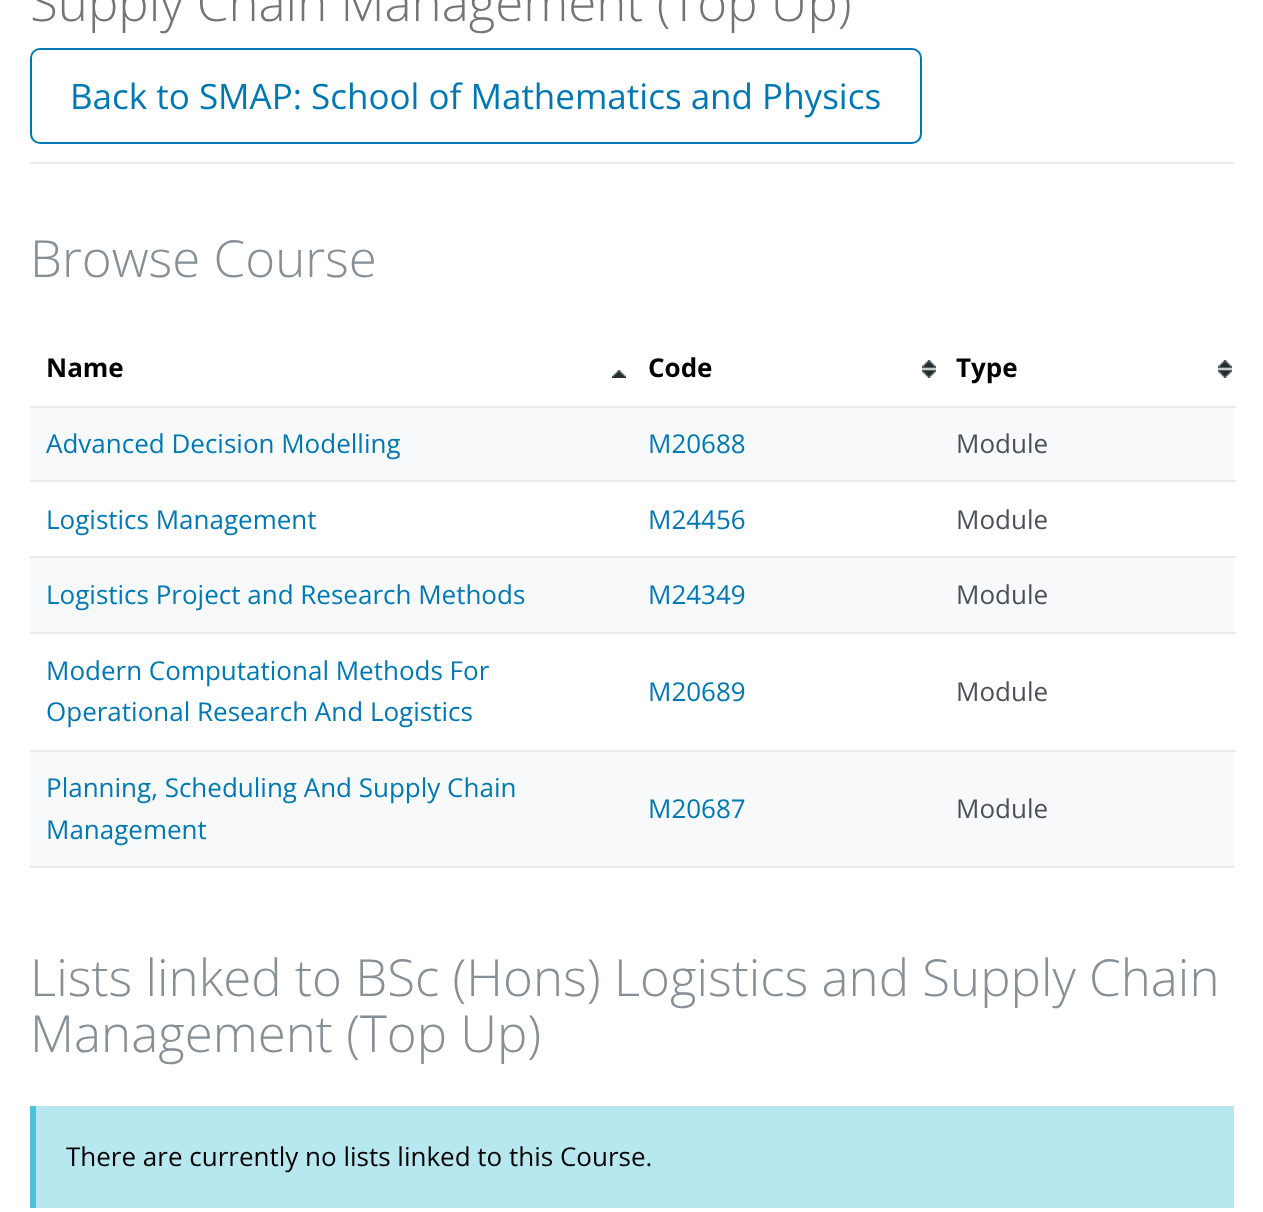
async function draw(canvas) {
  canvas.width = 1263;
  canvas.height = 1212;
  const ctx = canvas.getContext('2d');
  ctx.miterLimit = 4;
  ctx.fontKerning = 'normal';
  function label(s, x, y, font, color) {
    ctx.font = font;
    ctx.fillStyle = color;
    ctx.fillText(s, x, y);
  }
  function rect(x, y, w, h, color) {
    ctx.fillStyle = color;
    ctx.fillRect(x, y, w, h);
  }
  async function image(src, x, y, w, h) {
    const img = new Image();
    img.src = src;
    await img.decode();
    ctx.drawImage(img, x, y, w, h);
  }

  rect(0, 0, 1263, 1212, '#fff');
  rect(30, 162, 1204, 2, '#e9ecef');
  label('Supply Chain Management (Top Up)', 30, 21, '300 51px Open Sans', '#747472');
  ctx.beginPath();
  ctx.roundRect(31, 49, 890, 94, 9);
  ctx.strokeStyle = '#0078b4';
  ctx.lineWidth = 2;
  ctx.stroke();
  label('Back to SMAP: School of Mathematics and Physics', 70, 109, '35px Open Sans', '#0078b4');
  label('Browse Course', 30, 277, '300 51px Open Sans', '#868e96');
  rect(30, 866, 1204, 2, '#e9ecef');
  await image('assets/img1.png', 612, 370, 14, 8);
  label('Name', 46, 377, 'bold 26px Open Sans', '#000');
  await image('assets/img2.png', 922, 360, 14, 18);
  label('Code', 648, 377, 'bold 26px Open Sans', '#000');
  await image('assets/img2.png', 1218, 360, 14, 18);
  label('Type', 956, 377, 'bold 26px Open Sans', '#000');
  rect(30, 408, 1204, 72, '#f8f9fa');
  label('Advanced Decision Modelling', 46, 453, '26px Open Sans', '#0078b4');
  label('M20688', 648, 453, '26px Open Sans', '#0078b4');
  rect(30, 406, 1206, 2, '#e9ecef');
  label('Module', 956, 453, '26px Open Sans', '#495057');
  label('Logistics Management', 46, 529, '26px Open Sans', '#0078b4');
  label('M24456', 648, 529, '26px Open Sans', '#0078b4');
  rect(30, 480, 1206, 2, '#e9ecef');
  label('Module', 956, 529, '26px Open Sans', '#495057');
  rect(30, 558, 1204, 74, '#f8f9fa');
  label('Logistics Project and Research Methods', 46, 604, '26px Open Sans', '#0078b4');
  label('M24349', 648, 604, '26px Open Sans', '#0078b4');
  rect(30, 556, 1206, 2, '#e9ecef');
  label('Module', 956, 604, '26px Open Sans', '#495057');
  label('Modern Computational Methods For', 46, 680, '26px Open Sans', '#0078b4');
  label('Operational Research And Logistics', 46, 721, '26px Open Sans', '#0078b4');
  label('M20689', 648, 701, '26px Open Sans', '#0078b4');
  rect(30, 632, 1206, 2, '#e9ecef');
  label('Module', 956, 701, '26px Open Sans', '#495057');
  rect(30, 752, 1204, 114, '#f8f9fa');
  label('Planning, Scheduling And Supply Chain', 46, 797, '26px Open Sans', '#0078b4');
  label('Management', 46, 839, '26px Open Sans', '#0078b4');
  label('M20687', 648, 818, '26px Open Sans', '#0078b4');
  rect(30, 750, 1206, 2, '#e9ecef');
  label('Module', 956, 818, '26px Open Sans', '#495057');
  label('Lists linked to BSc (Hons) Logistics and Supply Chain', 30, 996, '300 51px Open Sans', '#868e96');
  label('Management (Top Up)', 30, 1052, '300 51px Open Sans', '#868e96');
  rect(36, 1106, 1198, 102, '#b7e7ef');
  rect(30, 1106, 6, 102, '#4cc3d6');
  label('There are currently no lists linked to this Course.', 66, 1166, '26px Open Sans', '#000');
}

draw(document.querySelector('canvas'));
